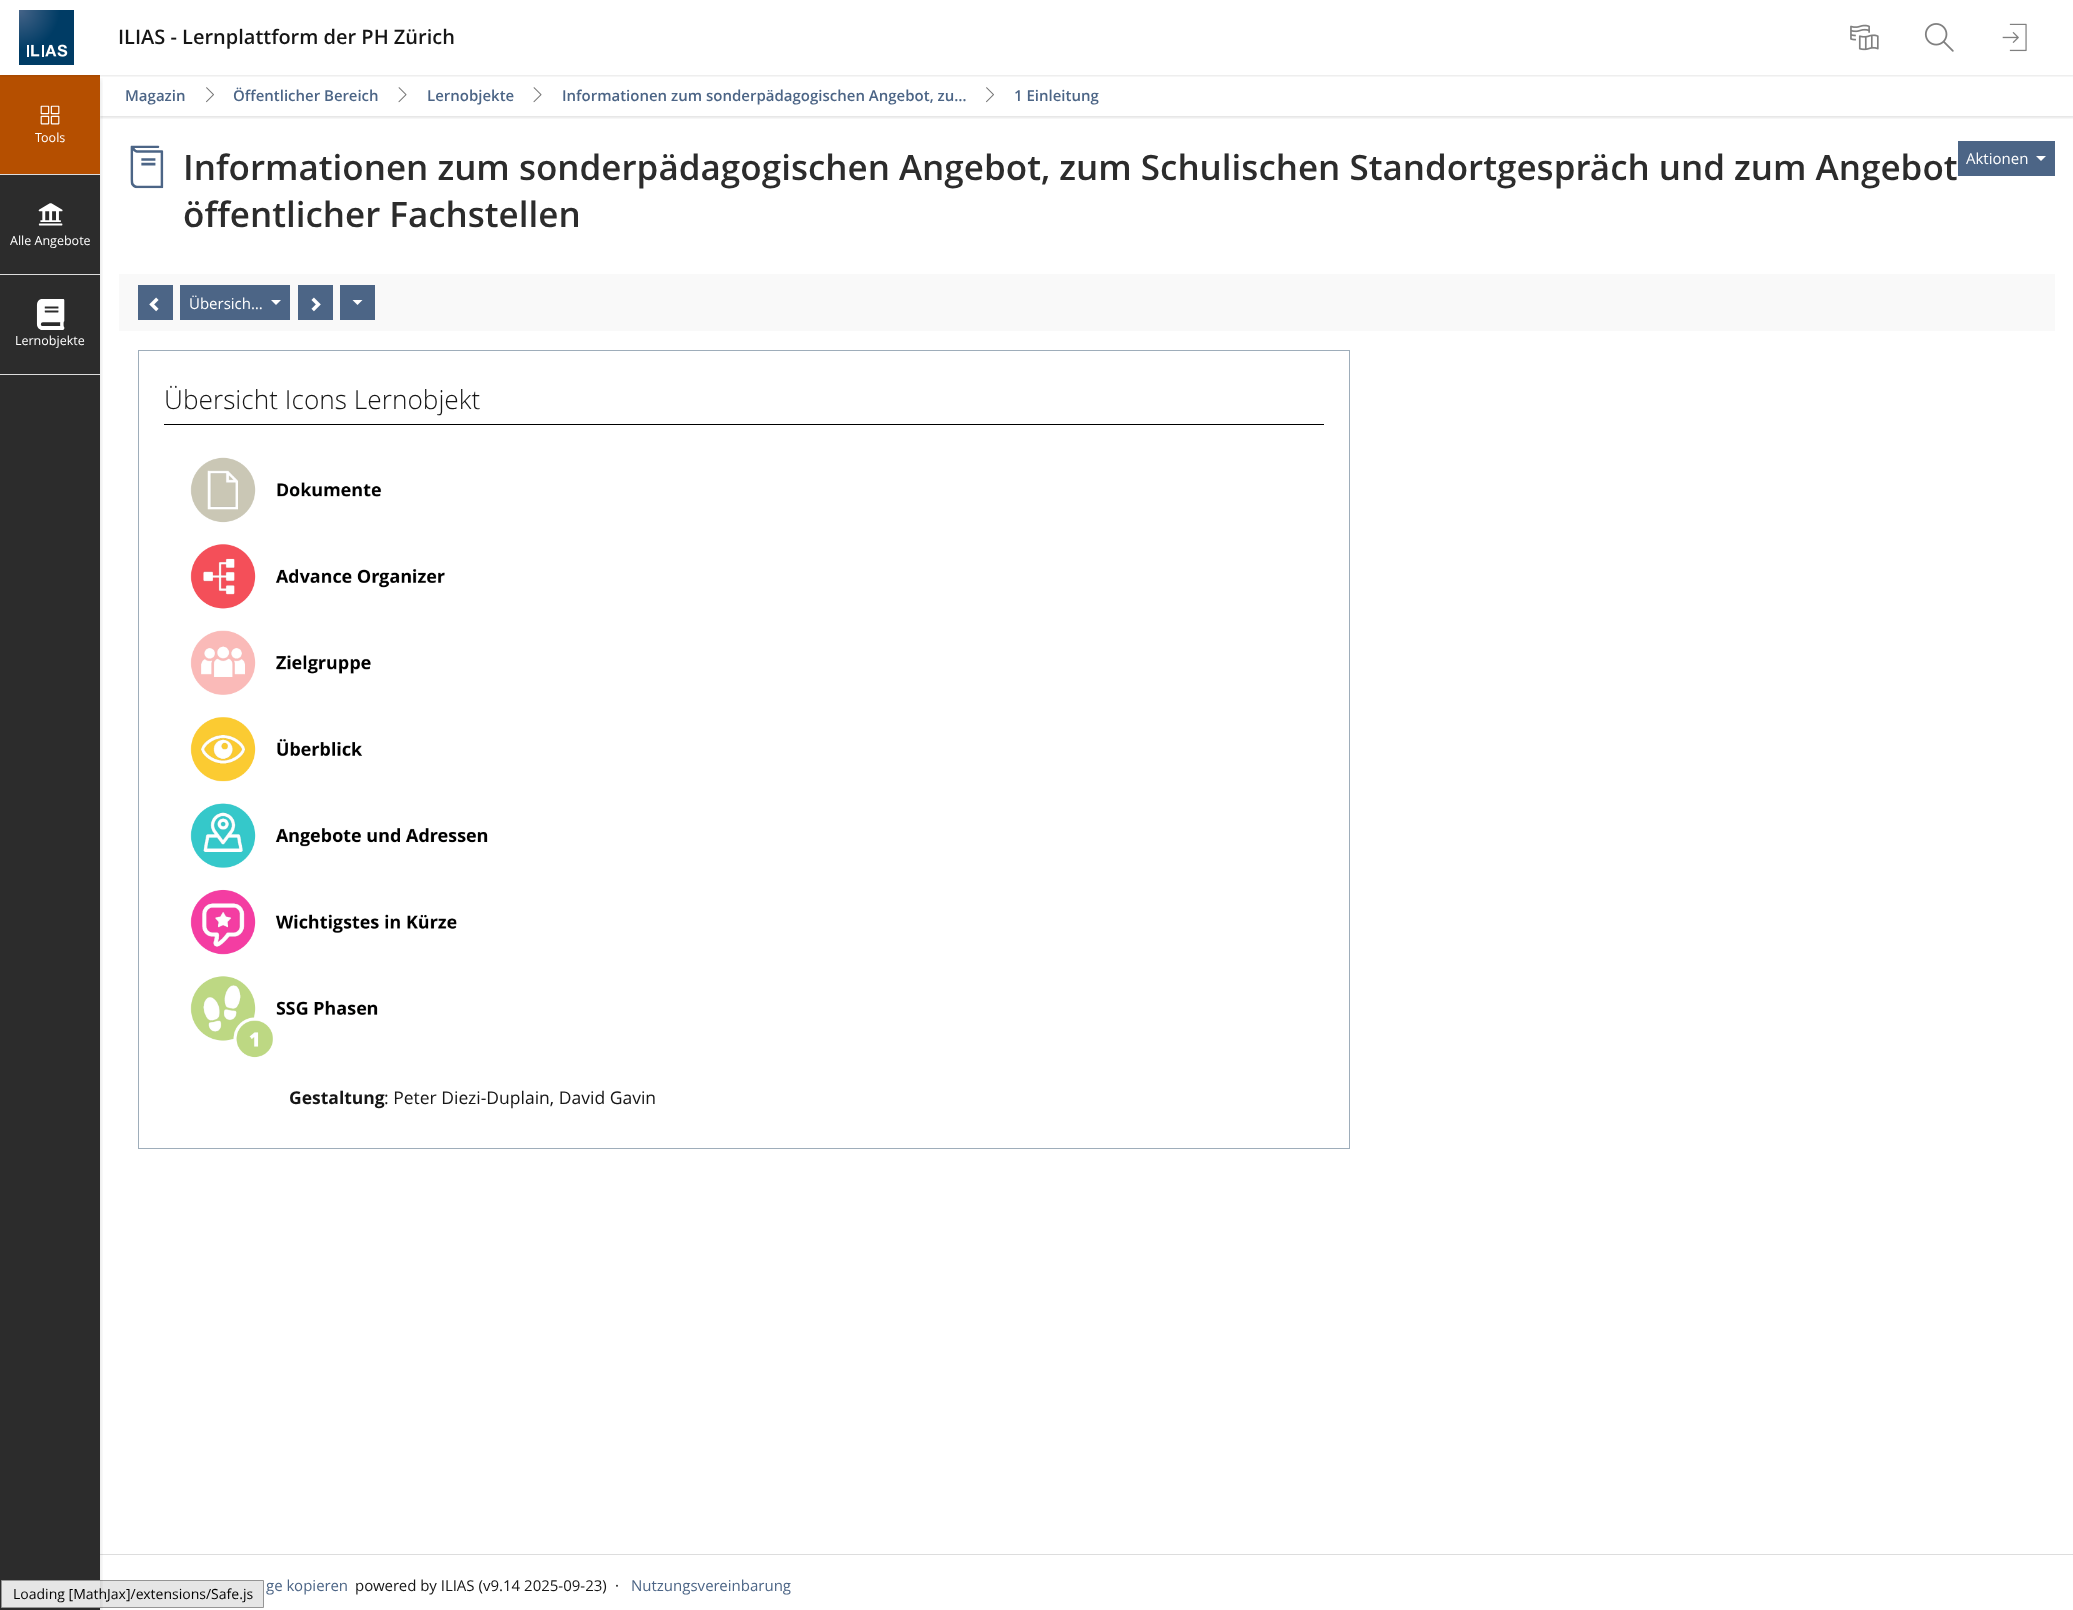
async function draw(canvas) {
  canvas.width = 2073;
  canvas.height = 1610;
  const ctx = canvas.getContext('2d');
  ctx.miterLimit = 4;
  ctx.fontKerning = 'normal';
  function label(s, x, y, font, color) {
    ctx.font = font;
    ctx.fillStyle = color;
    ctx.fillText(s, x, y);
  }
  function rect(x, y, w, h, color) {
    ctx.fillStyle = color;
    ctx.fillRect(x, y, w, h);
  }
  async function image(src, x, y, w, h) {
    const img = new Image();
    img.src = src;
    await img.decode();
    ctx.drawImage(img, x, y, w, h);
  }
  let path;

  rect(0, 0, 2073, 1610, '#fff');
  rect(0, 175, 100, 1435, '#2c2c2c');
  rect(100, 1554, 1973, 1, '#ddd');
  ctx.fillStyle = '#e6e6e6';
  ctx.beginPath();
  ctx.rect(1.5, 1580.5, 262, 27);
  ctx.fill();
  ctx.strokeStyle = '#959595';
  ctx.stroke();
  ctx.save();
  ctx.beginPath();
  ctx.rect(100, 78, 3, 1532);
  ctx.clip();
  ctx.fillStyle = '#0000001a';
  ctx.filter = 'blur(2.5px)';
  ctx.beginPath();
  ctx.rect(1, 79, 100, 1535);
  ctx.fill();
  ctx.filter = 'none';
  ctx.restore();
  ctx.save();
  ctx.beginPath();
  ctx.rect(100, 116, 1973, 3);
  ctx.clip();
  ctx.fillStyle = '#0000001a';
  ctx.filter = 'blur(1px)';
  ctx.beginPath();
  ctx.rect(100, 76, 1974, 42);
  ctx.fill();
  ctx.filter = 'none';
  ctx.restore();
  rect(0, 75, 100, 99, '#b54f00');
  ctx.save();
  ctx.beginPath();
  ctx.rect(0, 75, 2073, 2);
  ctx.clip();
  ctx.fillStyle = '#0000001a';
  ctx.filter = 'blur(1px)';
  ctx.beginPath();
  ctx.rect(0, 1, 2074, 75);
  ctx.fill();
  ctx.filter = 'none';
  ctx.restore();
  await image('assets/img1.png', 19, 10, 55, 55);
  label('ILIAS - Lernplattform der PH Zürich', 118, 44, '600 20px Open Sans', '#161616');
  await image('assets/img2.png', 1850, 24, 29, 27);
  await image('assets/img3.png', 1924, 23, 30, 29);
  await image('assets/img4.png', 2002, 23, 25, 29);
  rect(0, 174, 100, 1, '#ddd');
  await image('assets/img5.png', 40, 105, 20, 20);
  label('Tools', 35, 142, '12.5px Open Sans', '#fff');
  rect(0, 274, 100, 1, '#ddd');
  await image('assets/img6.png', 38, 203, 25, 23);
  label('Alle Angebote', 10, 245, '12.5px Open Sans', '#fff');
  rect(0, 374, 100, 1, '#ddd');
  await image('assets/img7.png', 36, 299, 29, 31);
  label('Lernobjekte', 15, 345, '12.5px Open Sans', '#fff');
  label('Magazin', 125, 101, '600 15px Open Sans', '#4c6586');
  await image('assets/img8.png', 206, 87, 8, 16);
  label('Öffentlicher Bereich', 233, 101, '600 15px Open Sans', '#4c6586');
  await image('assets/img9.png', 398, 87, 9, 16);
  label('Lernobjekte', 427, 101, '600 15px Open Sans', '#4c6586');
  await image('assets/img9.png', 533, 87, 9, 16);
  label('Informationen zum sonderpädagogischen Angebot, zu…', 562, 101, '600 15px Open Sans', '#4c6586');
  await image('assets/img8.png', 986, 87, 8, 16);
  label('1 Einleitung', 1014, 101, '600 15px Open Sans', '#4c6586');
  await image('assets/img10.png', 130, 145, 34, 44);
  label('Informationen zum sonderpädagogischen Angebot, zum Schulischen Standortgespräch und zum Angebot', 183, 180, '600 35px Open Sans', '#2c2c2c');
  label('öffentlicher Fachstellen', 183, 227, '600 35px Open Sans', '#2c2c2c');
  rect(1958, 141, 97, 35, '#4c6586');
  label('Aktionen', 1966, 164, '15px Open Sans', '#fff');
  path = new Path2D('M2036 156H2046L2041 161Z');
  ctx.fill(path);
  rect(119, 274, 1936, 57, '#f9f9f9');
  rect(138, 285, 35, 35, '#4c6586');
  await image('assets/img11.png', 149, 297, 10, 15);
  rect(180, 285, 110, 35, '#4c6586');
  label('Übersich…', 189, 309, '15px Open Sans', '#fff');
  path = new Path2D('M271 300H281L276 305Z');
  ctx.fill(path);
  rect(298, 285, 35, 35, '#4c6586');
  await image('assets/img12.png', 311, 297, 10, 15);
  rect(340, 285, 35, 35, '#4c6586');
  ctx.fillStyle = '#fff';
  path = new Path2D('M352.5 300H362.5L357.5 305Z');
  ctx.fill(path);
  ctx.strokeStyle = '#9eadba';
  ctx.strokeRect(138.5, 350.5, 1211, 798);
  rect(164, 424, 1160, 1, '#000');
  label('Übersicht Icons Lernobjekt', 164, 409, '300 26.25px Open Sans', '#161616');
  await image('assets/img13.png', 190, 457, 298, 601);
  label('Gestaltung', 289, 1104, 'bold 17.5px Open Sans', '#161616');
  label(': Peter Diezi-Duplain, David Gavin', 384, 1104, '17.5px Open Sans', '#161616');
  label('ge kopieren', 266, 1591, '15px Open Sans', '#4c6586');
  label('powered by ILIAS (v9.14 2025-09-23)', 355, 1591, '15px Open Sans', '#161616');
  label('·', 615, 1591, '15px Open Sans', '#161616');
  label('Nutzungsvereinbarung', 631, 1591, '15px Open Sans', '#4c6586');
  label('Loading [MathJax]/extensions/Safe.js', 13, 1599, '14px Open Sans', '#000');
}

draw(document.querySelector('canvas'));
